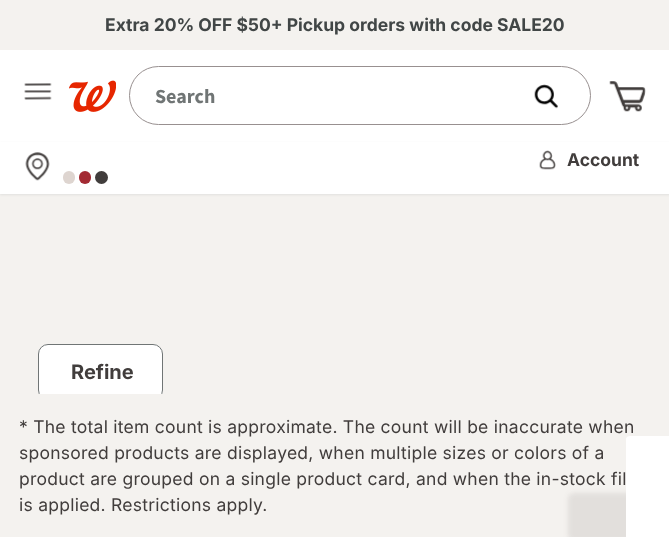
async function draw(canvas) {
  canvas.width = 669;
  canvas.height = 537;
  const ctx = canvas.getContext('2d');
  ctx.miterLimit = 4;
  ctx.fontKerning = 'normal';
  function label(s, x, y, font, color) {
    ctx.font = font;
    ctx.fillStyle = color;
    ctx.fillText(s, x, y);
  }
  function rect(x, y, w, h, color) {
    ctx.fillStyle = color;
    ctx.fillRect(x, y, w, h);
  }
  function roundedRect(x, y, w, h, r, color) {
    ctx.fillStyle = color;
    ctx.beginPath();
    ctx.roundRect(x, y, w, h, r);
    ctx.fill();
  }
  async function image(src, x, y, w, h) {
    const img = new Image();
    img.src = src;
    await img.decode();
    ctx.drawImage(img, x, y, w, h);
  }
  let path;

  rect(0, 0, 669, 537, '#fff');
  rect(0, 0, 669, 50, '#f4f2ef');
  label('Extra 20% OFF $50+ Pickup orders with code SALE20', 105, 31, 'bold 17.5px Inter', '#414646');
  await image('assets/img1.png', 24, 83, 28, 17);
  await image('assets/img2.png', 69, 80, 47, 32);
  ctx.beginPath();
  ctx.roundRect(129.5, 66.5, 461, 58, 29);
  ctx.strokeStyle = '#989090';
  ctx.stroke();
  label('Search', 155, 103, 'bold 20px Source Sans Pro', '#707575');
  await image('assets/img3.png', 534, 84, 24, 25);
  await image('assets/img4.png', 609, 81, 37, 31);
  rect(0, 194, 669, 343, '#f4f2ef');
  ctx.fillStyle = '#cfcfcf80';
  ctx.filter = 'blur(1px)';
  ctx.beginPath();
  ctx.rect(0, 143, 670, 52);
  ctx.fill();
  ctx.filter = 'none';
  rect(0, 142, 669, 52, '#fff');
  await image('assets/img5.png', 25, 152, 25, 29);
  roundedRect(63, 171, 12, 13, 6, '#ded5d0');
  roundedRect(79, 171, 12, 13, 6, '#a32a33');
  ctx.fillStyle = '#413d3c';
  ctx.beginPath();
  ctx.arc(101.5, 177.5, 6.5, 0, 2 * Math.PI);
  ctx.fill();
  await image('assets/img6.png', 539, 150, 17, 20);
  label('Account', 567, 166, 'bold 17.5px Inter', '#413d3c');
  ctx.save();
  ctx.beginPath();
  ctx.rect(0, 299, 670, 95);
  ctx.clip();
  roundedRect(38, 344, 125, 56, 10, '#fff');
  ctx.restore();
  ctx.save();
  ctx.beginPath();
  ctx.rect(19, 344, 632, 50);
  ctx.clip();
  ctx.beginPath();
  ctx.roundRect(38.5, 344.5, 124, 55, 9.5);
  ctx.strokeStyle = '#707575';
  ctx.stroke();
  ctx.restore();
  label('Refine', 71, 379, 'bold 20px Inter', '#413d3c');
  ctx.letterSpacing = '0.25px';
  label('* The total item count is approximate. The count will be inaccurate when', 19, 433, '17.5px Inter', '#413d3c');
  label('sponsored products are displayed, when multiple sizes or colors of a', 19, 459, '17.5px Inter', '#413d3c');
  label('product are grouped on a single product card, and when the in-stock fil', 19, 485, '17.5px Inter', '#413d3c');
  label('is applied. Restrictions apply.', 19, 511, '17.5px Inter', '#413d3c');
  ctx.fillStyle = '#413d3c1a';
  ctx.filter = 'blur(2.5px)';
  ctx.beginPath();
  ctx.roundRect(568, 493, 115, 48, 6);
  ctx.fill();
  ctx.filter = 'none';
  ctx.fillStyle = '#fff';
  path = new Path2D('M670 436V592H630C628 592 626 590 626 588V439C626 437 628 436 630 436Z');
  ctx.fill(path);
}

draw(document.querySelector('canvas'));
